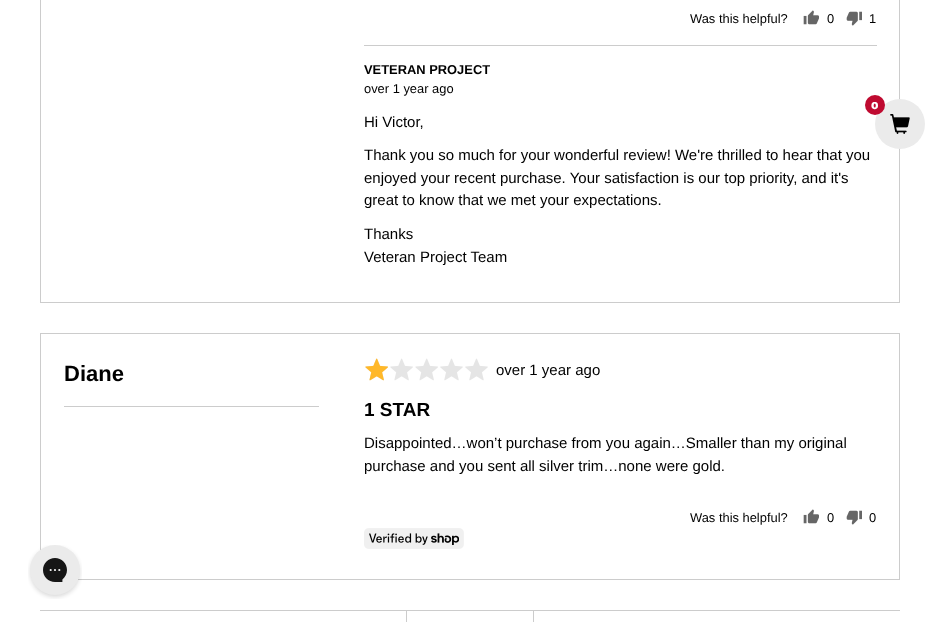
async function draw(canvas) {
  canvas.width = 940;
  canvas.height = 622;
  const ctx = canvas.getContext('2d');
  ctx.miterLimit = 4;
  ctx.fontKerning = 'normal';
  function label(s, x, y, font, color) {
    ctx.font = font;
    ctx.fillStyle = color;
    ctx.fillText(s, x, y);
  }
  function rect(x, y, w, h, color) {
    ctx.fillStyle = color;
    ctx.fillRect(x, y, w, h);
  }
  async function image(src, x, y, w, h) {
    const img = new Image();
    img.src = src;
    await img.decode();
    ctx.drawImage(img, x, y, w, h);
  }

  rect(0, 0, 940, 622, '#fff');
  rect(40, 302, 301, 1, '#ccc');
  rect(40, 0, 1, 303, '#ccc');
  rect(899, 0, 1, 303, '#ccc');
  rect(341, 302, 559, 1, '#ccc');
  label('Was this helpful?', 690, 23, '12.9px Liberation Sans', '#000');
  await image('assets/img1.png', 803, 10, 16, 15);
  label('0', 827, 23, '12.9px Liberation Sans', '#000');
  await image('assets/img2.png', 846, 11, 16, 15);
  label('1', 869, 23, '12.9px Liberation Sans', '#000');
  rect(364, 45, 513, 1, '#ccc');
  label('VETERAN PROJECT', 364, 74, 'bold 12.9px Liberation Sans', '#000');
  label('over 1 year ago', 364, 93, '12.9px Liberation Sans', '#000');
  label('Hi Victor,', 364, 127, '15px Liberation Sans', '#000');
  label('Thank you so much for your wonderful review! We\'re thrilled to hear that you', 364, 160, '15px Liberation Sans', '#000');
  label('enjoyed your recent purchase. Your satisfaction is our top priority, and it\'s', 364, 183, '15px Liberation Sans', '#000');
  label('great to know that we met your expectations.', 364, 205, '15px Liberation Sans', '#000');
  label('Thanks', 364, 239, '15px Liberation Sans', '#000');
  label('Veteran Project Team', 364, 262, '15px Liberation Sans', '#000');
  rect(40, 333, 860, 1, '#ccc');
  rect(78, 579, 263, 1, '#ccc');
  rect(40, 333, 1, 218, '#ccc');
  rect(64, 406, 255, 1, '#ccc');
  label('Diane', 64, 381, 'bold 22px Liberation Sans', '#000');
  rect(899, 333, 1, 247, '#ccc');
  rect(341, 579, 559, 1, '#ccc');
  await image('assets/img3.png', 365, 358, 123, 23);
  await image('assets/img4.png', 365, 358, 23, 23);
  label('over 1 year ago', 496, 375, '15px Liberation Sans', '#000');
  label('1 STAR', 364, 416, 'bold 19px Liberation Sans', '#000');
  label('Disappointed…won’t purchase from you again…Smaller than my original', 364, 448, '15px Liberation Sans', '#000');
  label('purchase and you sent all silver trim…none were gold.', 364, 471, '15px Liberation Sans', '#000');
  label('Was this helpful?', 690, 522, '12.9px Liberation Sans', '#000');
  await image('assets/img1.png', 803, 509, 16, 15);
  label('0', 827, 522, '12.9px Liberation Sans', '#000');
  await image('assets/img2.png', 846, 510, 16, 15);
  label('0', 869, 522, '12.9px Liberation Sans', '#000');
  await image('assets/img5.png', 364, 528, 100, 21);
  ctx.strokeStyle = '#ccc';
  ctx.strokeRect(406.5, 610.5, 127, 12);
  rect(40, 610, 860, 1, '#ccc');
  ctx.fillStyle = '#ebebeb';
  ctx.beginPath();
  ctx.arc(900, 124, 25, 0, 2 * Math.PI);
  ctx.fill();
  ctx.fillStyle = '#bf0a30';
  ctx.beginPath();
  ctx.arc(875, 105, 10, 0, 2 * Math.PI);
  ctx.fill();
  label('0', 871, 109, '10px Candal', '#fff');
  await image('assets/img6.png', 890, 114, 20, 20);
  await image('assets/img7.png', 28, 545, 54, 54);
}

draw(document.querySelector('canvas'));
